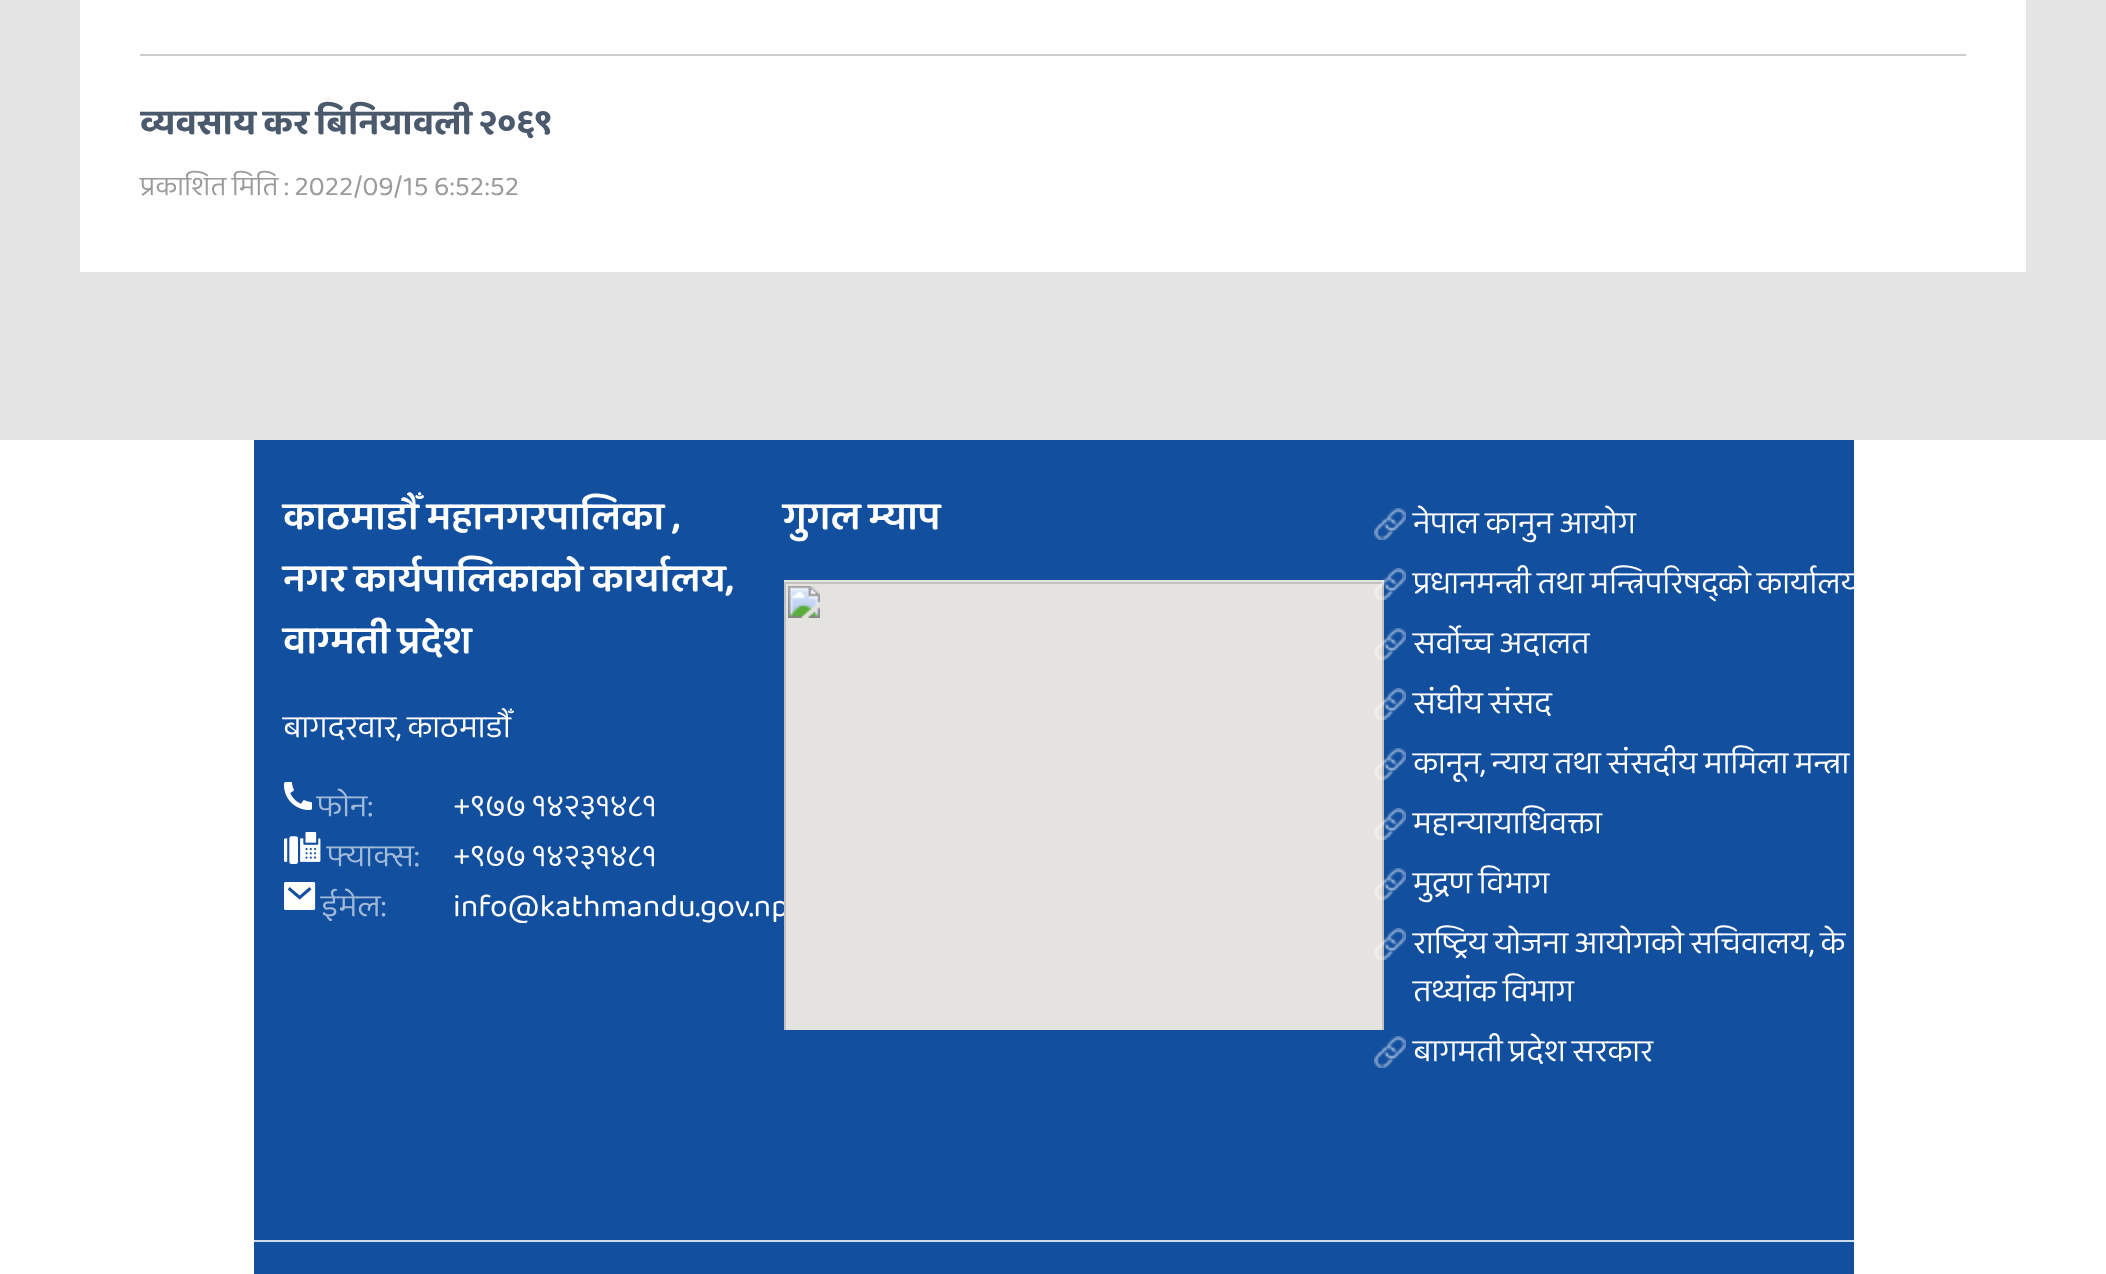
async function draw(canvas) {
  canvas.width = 2106;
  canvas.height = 1274;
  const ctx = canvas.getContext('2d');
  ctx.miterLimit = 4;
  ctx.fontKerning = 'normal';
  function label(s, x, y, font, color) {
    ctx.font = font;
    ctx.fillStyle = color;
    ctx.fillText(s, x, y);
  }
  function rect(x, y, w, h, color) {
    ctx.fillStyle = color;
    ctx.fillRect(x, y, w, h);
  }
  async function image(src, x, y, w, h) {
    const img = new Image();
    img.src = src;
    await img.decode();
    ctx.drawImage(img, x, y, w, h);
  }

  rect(0, 0, 2106, 1274, '#fff');
  rect(0, 0, 2106, 440, '#e5e5e5');
  rect(80, 0, 1946, 272, '#fff');
  rect(140, 54, 1826, 2, '#ccc');
  ctx.save();
  ctx.beginPath();
  ctx.rect(140, 0, 1826, 212);
  ctx.clip();
  label('व्यवसाय कर बिनियावली २०६९', 140, 134, 'bold 36px "Baloo 2"', '#4a596b');
  ctx.restore();
  label('प्रकाशित मिति : 2022/09/15 6:52:52', 140, 195, '28px "Baloo 2"', '#9b9b9b');
  rect(254, 440, 1600, 834, '#124f9f');
  rect(254, 1240, 1600, 2, '#d0dcec');
  label('काठमाडौँ महानगरपालिका ,', 283, 529, '600 40px "Baloo 2"', '#fff');
  label('नगर कार्यपालिकाको कार्यालय,', 283, 591, '600 40px "Baloo 2"', '#fff');
  label('वाग्मती प्रदेश', 283, 653, '600 40px "Baloo 2"', '#fff');
  label('बागदरवार, काठमाडौँ', 283, 737, '32px "Baloo 2"', '#fff');
  await image('assets/img1.png', 284, 782, 28, 28);
  label('फोन:', 317, 816, '32px "Baloo 2"', '#a0b9d9');
  await image('assets/img2.png', 284, 832, 37, 32);
  label('फ्याक्स:', 327, 866, '32px "Baloo 2"', '#a0b9d9');
  await image('assets/img3.png', 284, 882, 32, 28);
  label('ईमेल:', 321, 916, '32px "Baloo 2"', '#a0b9d9');
  label('+९७७ १४२३१४८१', 453, 816, '32px "Baloo 2"', '#fff');
  label('+९७७ १४२३१४८१', 453, 866, '32px "Baloo 2"', '#fff');
  label('info@kathmandu.gov.np', 453, 916, '32px "Baloo 2"', '#fff');
  label('गुगल म्याप', 783, 529, '600 40px "Baloo 2"', '#fff');
  await image('assets/img4.png', 784, 580, 600, 450);
  label('नेपाल कानुन आयोग', 1413, 533, '32px "Baloo 2"', '#fff');
  await image('assets/img5.png', 1374, 508, 32, 32);
  await image('assets/img6.png', 1374, 568, 32, 32);
  label('प्रधानमन्त्री तथा मन्त्रिपरिषद्को कार्यालय', 1413, 593, '32px "Baloo 2"', '#fff');
  await image('assets/img7.png', 1374, 628, 32, 32);
  label('सर्वोच्च अदालत', 1413, 653, '32px "Baloo 2"', '#fff');
  await image('assets/img7.png', 1374, 688, 32, 32);
  label('संघीय संसद', 1413, 713, '32px "Baloo 2"', '#fff');
  await image('assets/img7.png', 1374, 748, 32, 32);
  label('कानून, न्याय तथा संसदीय मामिला मन्त्रा', 1413, 773, '32px "Baloo 2"', '#fff');
  await image('assets/img7.png', 1374, 808, 32, 32);
  label('महान्यायाधिवक्ता', 1413, 833, '32px "Baloo 2"', '#fff');
  label('मुद्रण विभाग', 1413, 893, '32px "Baloo 2"', '#fff');
  await image('assets/img8.png', 1374, 868, 32, 32);
  await image('assets/img7.png', 1374, 928, 32, 32);
  label('राष्ट्रिय योजना आयोगको सचिवालय, के', 1413, 953, '32px "Baloo 2"', '#fff');
  label('तथ्यांक विभाग', 1413, 1001, '32px "Baloo 2"', '#fff');
  await image('assets/img9.png', 1374, 1036, 32, 32);
  label('बागमती प्रदेश सरकार', 1413, 1061, '32px "Baloo 2"', '#fff');
}

draw(document.querySelector('canvas'));
